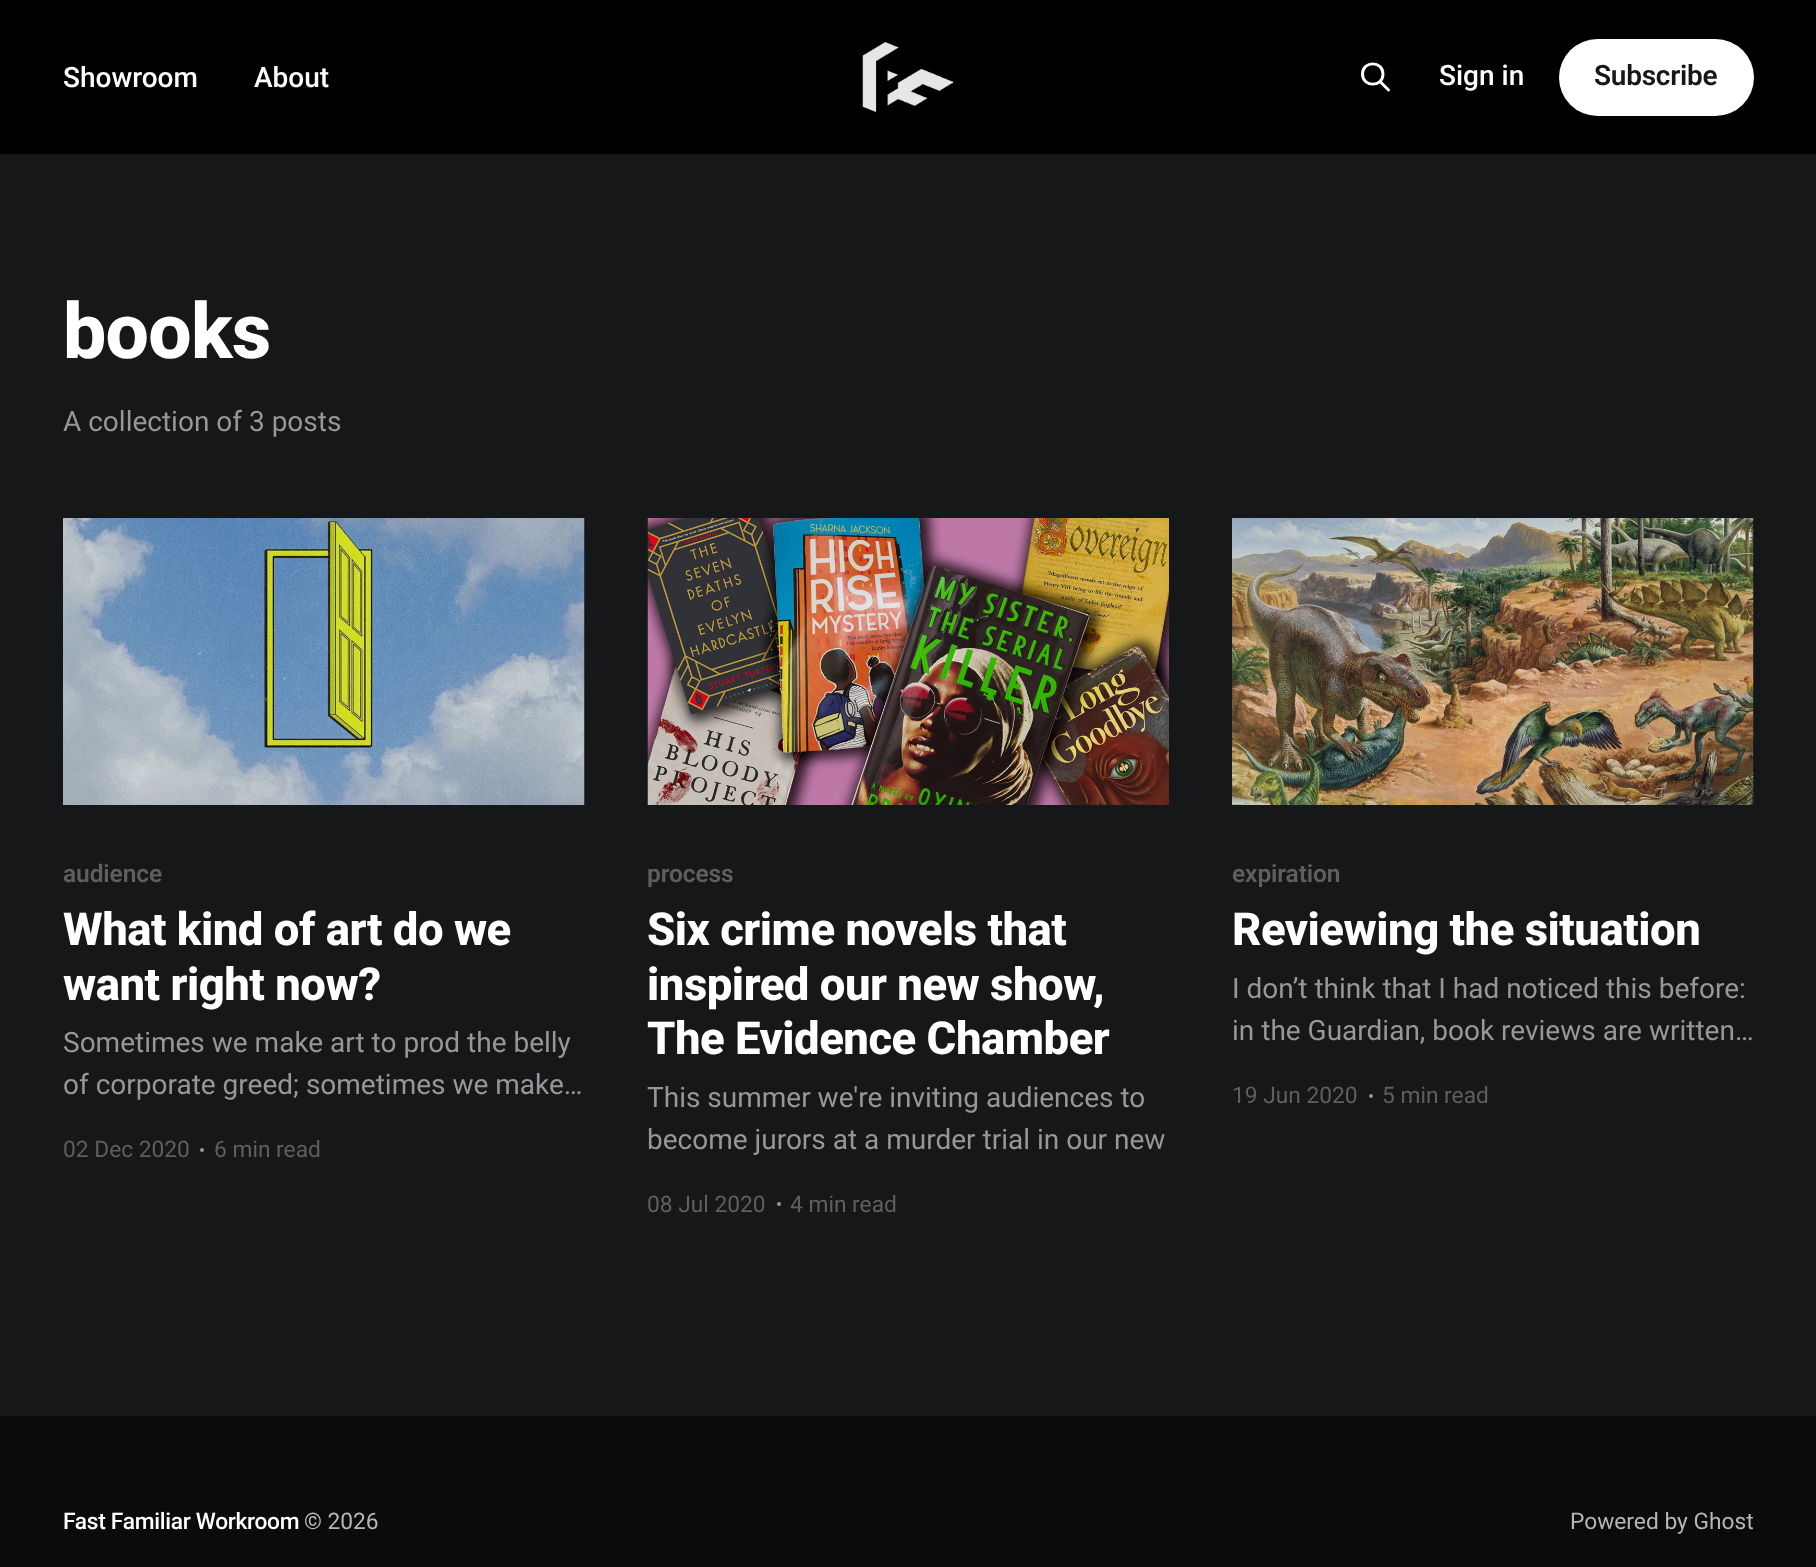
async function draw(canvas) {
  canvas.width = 1816;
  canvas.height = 1567;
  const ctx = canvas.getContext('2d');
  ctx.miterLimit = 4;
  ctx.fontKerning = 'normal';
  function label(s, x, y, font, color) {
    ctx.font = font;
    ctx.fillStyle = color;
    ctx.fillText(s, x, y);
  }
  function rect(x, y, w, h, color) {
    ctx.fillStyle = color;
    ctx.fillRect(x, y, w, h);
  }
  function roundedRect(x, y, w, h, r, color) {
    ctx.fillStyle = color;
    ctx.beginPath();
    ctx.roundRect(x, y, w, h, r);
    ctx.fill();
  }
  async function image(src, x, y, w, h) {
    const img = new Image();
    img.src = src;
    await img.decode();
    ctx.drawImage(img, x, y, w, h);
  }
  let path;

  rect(0, 0, 1816, 1567, '#151719');
  rect(0, 0, 1816, 154, '#000');
  label('Showroom', 63, 87, '500 28px Roboto', '#fff');
  label('About', 254, 87, '500 28px Roboto', '#fff');
  await image('assets/img1.png', 862, 42, 92, 70);
  path = new Path2D('M1388.5 90L1380 81.5M1383 74C1383 87.5 1362.5 87.5 1362.5 74C1362.5 60.5 1383 60.5 1383 74Z');
  ctx.strokeStyle = '#fff';
  ctx.lineWidth = 2.9;
  ctx.lineCap = 'round';
  ctx.lineJoin = 'round';
  ctx.stroke(path);
  label('Sign in', 1439, 85, '500 28px Roboto', '#fff');
  roundedRect(1559, 39, 195, 77, 38.5, '#fff');
  ctx.letterSpacing = '-0.25px';
  label('Subscribe', 1594, 85, '600 28px Roboto', '#15171a');
  ctx.letterSpacing = '-0.75px';
  label('books', 63, 358, '800 77px Roboto', '#fff');
  ctx.letterSpacing = '0px';
  label('A collection of 3 posts', 63, 431, '28px Roboto', '#979797');
  await image('assets/img2.png', 63, 518, 522, 287);
  ctx.letterSpacing = '-0.1px';
  label('audience', 63, 882, '600 24.5px Roboto', '#5f5f5f');
  ctx.letterSpacing = '-0.5px';
  label('What kind of art do we', 63, 945, '800 45.5px Roboto', '#fff');
  label('want right now?', 63, 1000, '800 45.5px Roboto', '#fff');
  ctx.letterSpacing = '0px';
  label('Sometimes we make art to prod the belly', 63, 1052, '28px Roboto', '#979797');
  label('of corporate greed; sometimes we make…', 63, 1094, '28px Roboto', '#979797');
  label('02 Dec 2020', 63, 1157, '22.75px Roboto', '#5f5f5f');
  ctx.fillStyle = '#979797';
  ctx.beginPath();
  ctx.arc(202, 1150, 2, 0, 2 * Math.PI);
  ctx.fill();
  label('6 min read', 214, 1157, '22.75px Roboto', '#5f5f5f');
  await image('assets/img3.png', 647, 518, 522, 287);
  ctx.letterSpacing = '-0.1px';
  label('process', 647, 882, '600 24.5px Roboto', '#5f5f5f');
  ctx.letterSpacing = '-0.5px';
  label('Six crime novels that', 647, 945, '800 45.5px Roboto', '#fff');
  label('inspired our new show,', 647, 1000, '800 45.5px Roboto', '#fff');
  label('The Evidence Chamber', 647, 1054, '800 45.5px Roboto', '#fff');
  ctx.letterSpacing = '0px';
  label('This summer we\'re inviting audiences to', 647, 1107, '28px Roboto', '#979797');
  label('become jurors at a murder trial in our new', 647, 1149, '28px Roboto', '#979797');
  label('08 Jul 2020', 647, 1212, '22.75px Roboto', '#5f5f5f');
  ctx.fillStyle = '#979797';
  ctx.beginPath();
  ctx.arc(779, 1204, 2, 0, 2 * Math.PI);
  ctx.fill();
  label('4 min read', 790, 1212, '22.75px Roboto', '#5f5f5f');
  await image('assets/img4.png', 1232, 518, 522, 287);
  ctx.letterSpacing = '-0.1px';
  label('expiration', 1232, 882, '600 24.5px Roboto', '#5f5f5f');
  ctx.letterSpacing = '-0.5px';
  label('Reviewing the situation', 1232, 945, '800 45.5px Roboto', '#fff');
  ctx.letterSpacing = '0px';
  label('I don’t think that I had noticed this before:', 1232, 998, '28px Roboto', '#979797');
  label('in the Guardian, book reviews are written…', 1232, 1040, '28px Roboto', '#979797');
  label('19 Jun 2020', 1232, 1103, '22.75px Roboto', '#5f5f5f');
  ctx.fillStyle = '#979797';
  ctx.beginPath();
  ctx.arc(1371, 1096, 2, 0, 2 * Math.PI);
  ctx.fill();
  label('5 min read', 1382, 1103, '22.75px Roboto', '#5f5f5f');
  rect(0, 1416, 1816, 151, '#0a0b0c');
  ctx.letterSpacing = '-0.3px';
  label('Fast Familiar Workroom', 63, 1529, '500 22.75px Roboto', '#fff');
  ctx.letterSpacing = '0px';
  label('© 2026', 304, 1529, '22.75px Roboto', '#b6b6b6');
  label('Powered by Ghost', 1570, 1529, '22.75px Roboto', '#b6b6b6');
}

draw(document.querySelector('canvas'));
